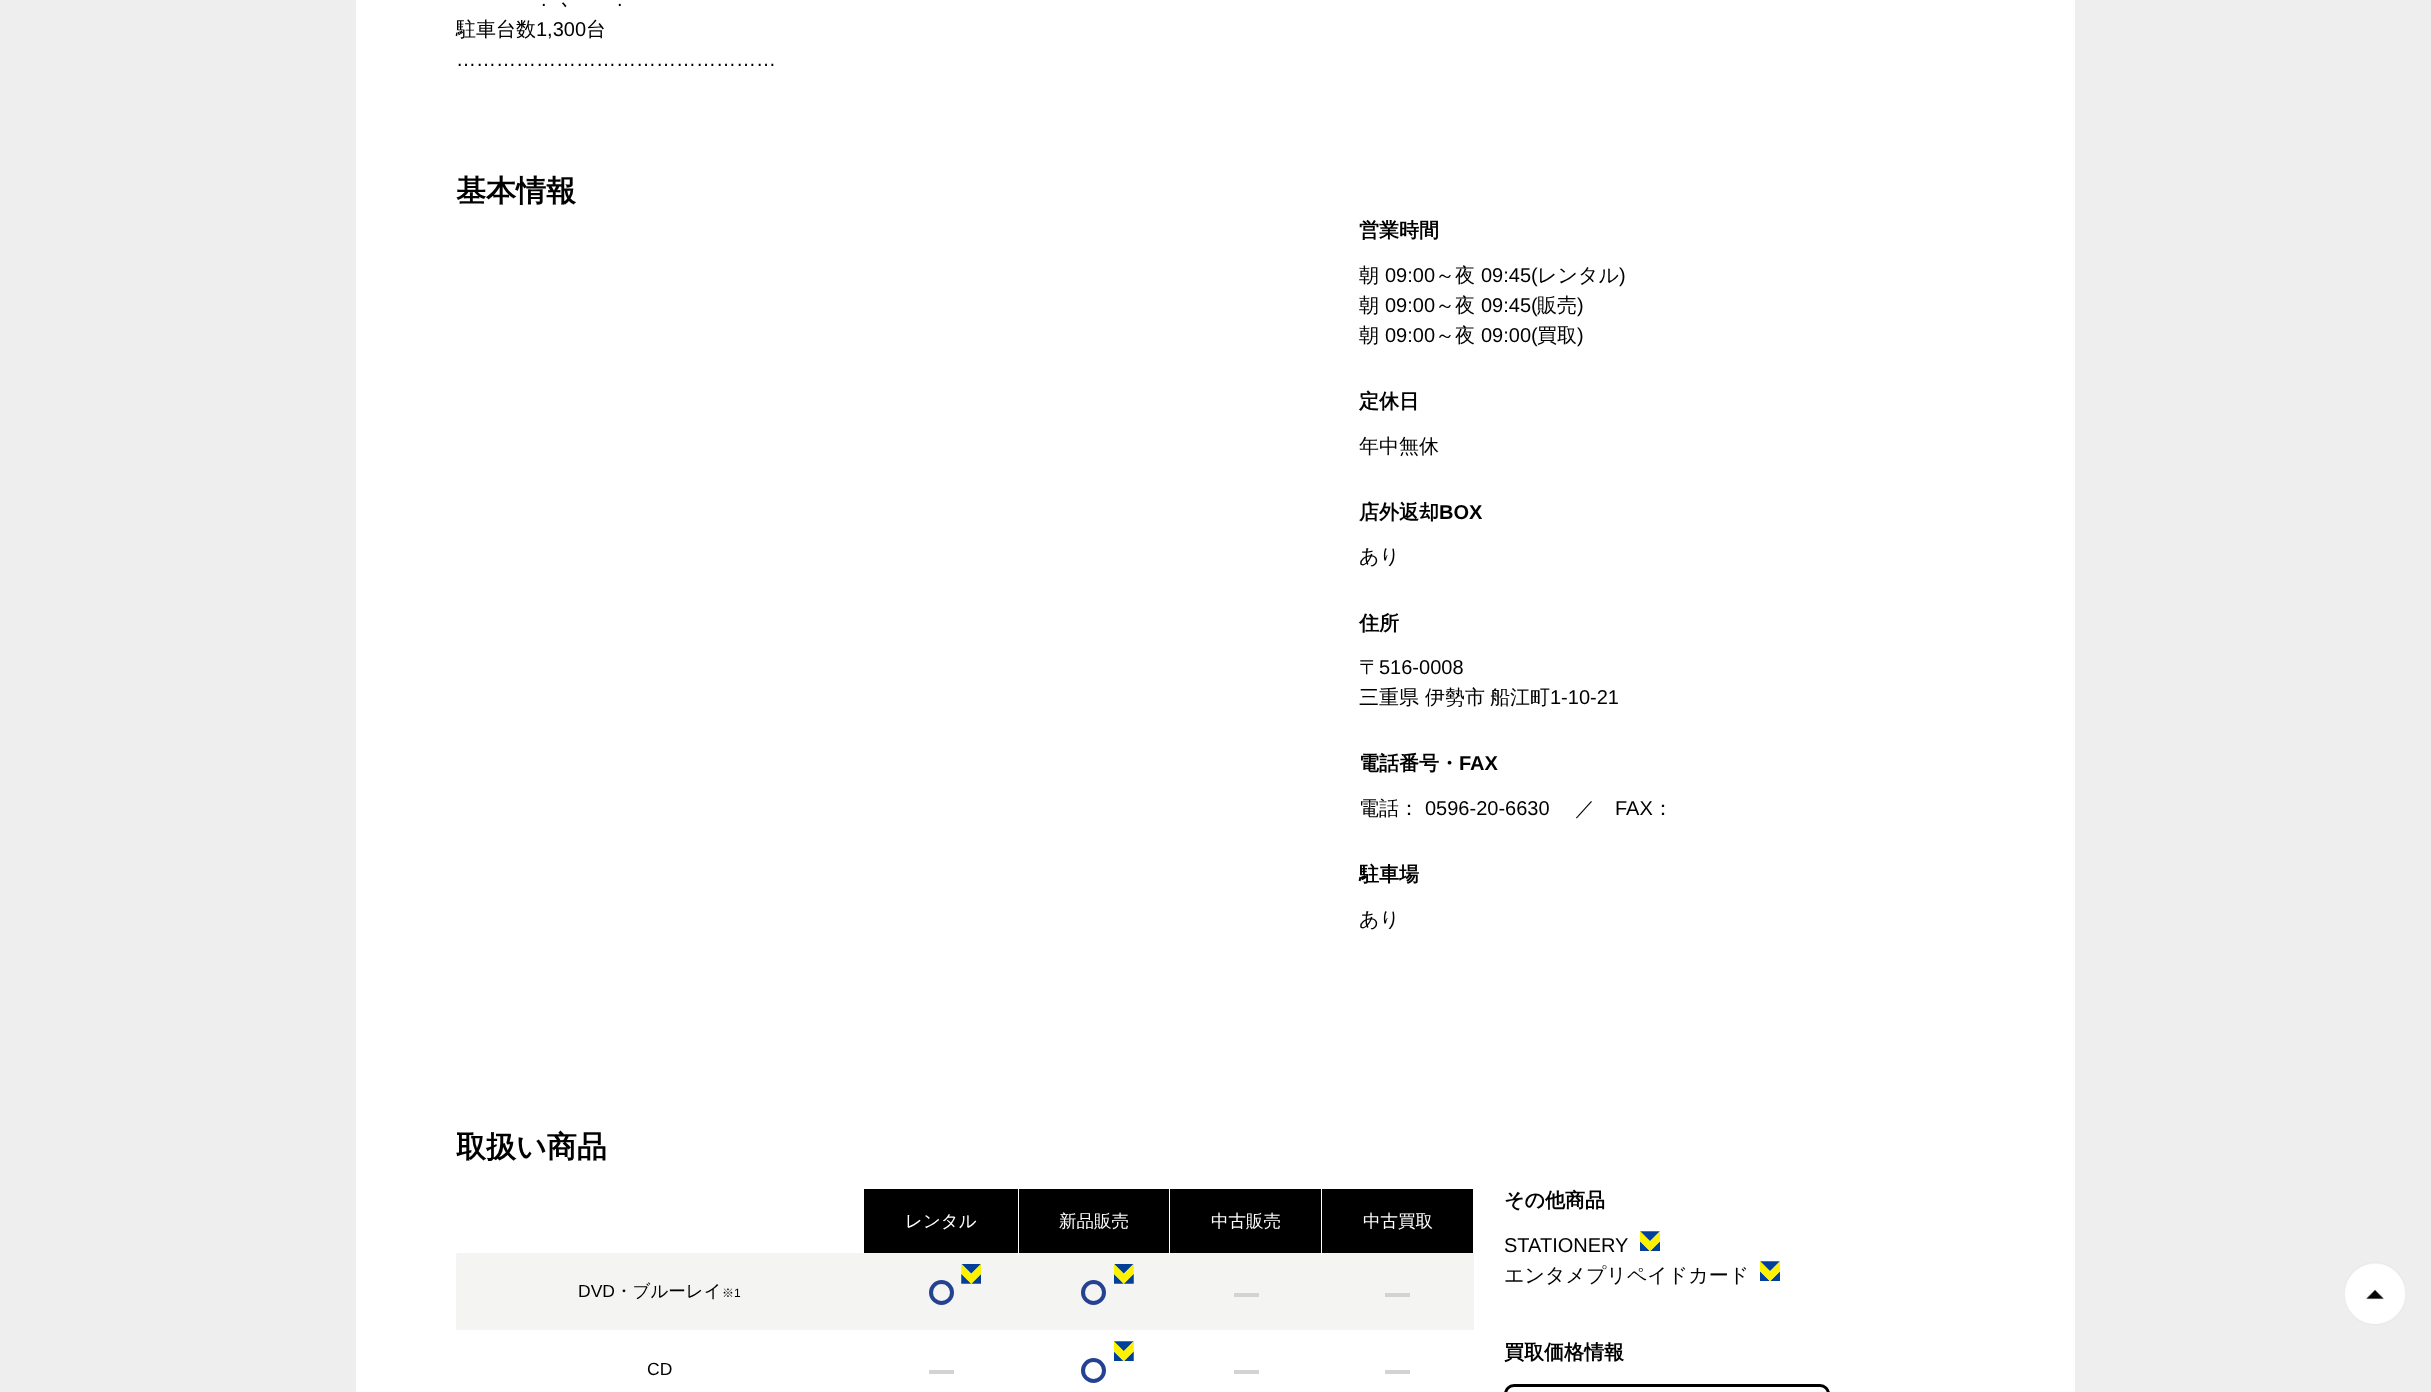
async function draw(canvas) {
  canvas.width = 2431;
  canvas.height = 1392;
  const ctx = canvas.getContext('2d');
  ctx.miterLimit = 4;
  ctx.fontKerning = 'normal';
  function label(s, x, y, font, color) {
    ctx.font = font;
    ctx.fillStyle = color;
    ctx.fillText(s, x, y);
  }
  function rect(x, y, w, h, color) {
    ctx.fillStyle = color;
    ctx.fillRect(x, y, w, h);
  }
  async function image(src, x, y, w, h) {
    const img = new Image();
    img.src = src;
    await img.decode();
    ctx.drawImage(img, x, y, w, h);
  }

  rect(0, 0, 2431, 1392, '#eee');
  rect(356, 0, 1719, 1392, '#fff');
  label('.', 541, 6, '20px Liberation Sans', '#000');
  label('､', 561, 6, '20px IPAPGothic', '#000');
  label('.', 617, 6, '20px Liberation Sans', '#000');
  label('駐車台数', 456, 36, '500 20px WenQuanYi Zen Hei', '#000');
  label('1,300', 536, 36, '20px Liberation Sans', '#000');
  label('台', 586, 36, '500 20px WenQuanYi Zen Hei', '#000');
  label('…………………………………………', 456, 66, '20px Liberation Sans', '#000');
  label('基本情報', 456, 201, 'bold 30px WenQuanYi Zen Hei', '#000');
  label('営業時間', 1359, 237, 'bold 20px WenQuanYi Zen Hei', '#000');
  label('朝', 1359, 282, '500 20px WenQuanYi Zen Hei', '#000');
  label('09:00', 1385, 282, '20px Liberation Sans', '#000');
  label('～夜', 1435, 282, '500 20px WenQuanYi Zen Hei', '#000');
  label('09:45(', 1481, 282, '20px Liberation Sans', '#000');
  label('レンタル', 1537, 282, '500 20px WenQuanYi Zen Hei', '#000');
  label(')', 1619, 282, '20px Liberation Sans', '#000');
  label('朝', 1359, 312, '500 20px WenQuanYi Zen Hei', '#000');
  label('09:00', 1385, 312, '20px Liberation Sans', '#000');
  label('～夜', 1435, 312, '500 20px WenQuanYi Zen Hei', '#000');
  label('09:45(', 1481, 312, '20px Liberation Sans', '#000');
  label('販売', 1537, 312, '500 20px WenQuanYi Zen Hei', '#000');
  label(')', 1577, 312, '20px Liberation Sans', '#000');
  label('朝', 1359, 342, '500 20px WenQuanYi Zen Hei', '#000');
  label('09:00', 1385, 342, '20px Liberation Sans', '#000');
  label('～夜', 1435, 342, '500 20px WenQuanYi Zen Hei', '#000');
  label('09:00(', 1481, 342, '20px Liberation Sans', '#000');
  label('買取', 1537, 342, '500 20px WenQuanYi Zen Hei', '#000');
  label(')', 1577, 342, '20px Liberation Sans', '#000');
  label('定休日', 1359, 408, 'bold 20px WenQuanYi Zen Hei', '#000');
  label('年中無休', 1359, 453, '500 20px WenQuanYi Zen Hei', '#000');
  label('店外返却', 1359, 519, 'bold 20px WenQuanYi Zen Hei', '#000');
  label('BOX', 1439, 519, 'bold 20px Liberation Sans', '#000');
  label('あり', 1359, 563, '500 20px WenQuanYi Zen Hei', '#000');
  label('住所', 1359, 630, 'bold 20px WenQuanYi Zen Hei', '#000');
  label('〒', 1359, 674, '500 20px WenQuanYi Zen Hei', '#000');
  label('516-0008', 1379, 674, '20px Liberation Sans', '#000');
  label('三重県', 1359, 704, '500 20px WenQuanYi Zen Hei', '#000');
  label('伊勢市', 1425, 704, '500 20px WenQuanYi Zen Hei', '#000');
  label('船江町', 1490, 704, '500 20px WenQuanYi Zen Hei', '#000');
  label('1-10-21', 1550, 704, '20px Liberation Sans', '#000');
  label('電話番号・', 1359, 770, 'bold 20px WenQuanYi Zen Hei', '#000');
  label('FAX', 1459, 770, 'bold 20px Liberation Sans', '#000');
  label('電話：', 1359, 815, '500 20px WenQuanYi Zen Hei', '#000');
  label('0596-20-6630', 1425, 815, '20px Liberation Sans', '#000');
  label('／', 1575, 815, '500 20px WenQuanYi Zen Hei', '#000');
  label('FAX', 1615, 815, '20px Liberation Sans', '#000');
  label('：', 1653, 815, '500 20px WenQuanYi Zen Hei', '#000');
  label('駐車場', 1359, 881, 'bold 20px WenQuanYi Zen Hei', '#000');
  label('あり', 1359, 926, '500 20px WenQuanYi Zen Hei', '#000');
  label('取扱い商品', 456, 1157, 'bold 30px WenQuanYi Zen Hei', '#000');
  rect(864, 1189, 154, 64, '#000');
  rect(456, 1253, 1018, 77, '#f4f4f3');
  rect(863, 1253, 1, 1, '#fff');
  label('レンタル', 905, 1227, '500 17.5px WenQuanYi Zen Hei', '#fff');
  rect(1019, 1189, 150, 64, '#000');
  rect(1018, 1253, 1, 1, '#fff');
  label('新品販売', 1059, 1227, '500 17.5px WenQuanYi Zen Hei', '#fff');
  rect(1170, 1189, 151, 64, '#000');
  rect(1169, 1253, 1, 1, '#fff');
  label('中古販売', 1211, 1227, '500 17.5px WenQuanYi Zen Hei', '#fff');
  rect(1322, 1189, 151, 64, '#000');
  rect(1473, 1253, 1, 1, '#fff');
  rect(1321, 1253, 1, 1, '#fff');
  label('中古買取', 1363, 1227, '500 17.5px WenQuanYi Zen Hei', '#fff');
  rect(456, 1253, 1, 1, '#fff');
  label('DVD', 578, 1297, '17.5px Liberation Sans', '#000');
  label('・ブルーレイ', 615, 1297, '500 17.5px WenQuanYi Zen Hei', '#000');
  label('※', 722, 1297, '500 12px WenQuanYi Zen Hei', '#000');
  label('1', 734, 1297, '12px Liberation Sans', '#000');
  ctx.beginPath();
  ctx.arc(941.5, 1292.5, 10.5, 0, 2 * Math.PI);
  ctx.strokeStyle = '#254292';
  ctx.lineWidth = 4;
  ctx.stroke();
  await image('assets/img1.png', 961, 1264, 20, 20);
  ctx.beginPath();
  ctx.arc(1093.5, 1292.5, 10.5, 0, 2 * Math.PI);
  ctx.stroke();
  await image('assets/img2.png', 1114, 1264, 20, 20);
  rect(1234, 1293, 25, 4, '#d3d3d3');
  rect(1385, 1293, 25, 4, '#d3d3d3');
  label('CD', 647, 1375, '17.5px Liberation Sans', '#000');
  rect(929, 1370, 25, 4, '#d3d3d3');
  ctx.beginPath();
  ctx.arc(1093.5, 1370.5, 10.5, 0, 2 * Math.PI);
  ctx.stroke();
  await image('assets/img3.png', 1114, 1341, 20, 20);
  rect(1234, 1370, 25, 4, '#d3d3d3');
  rect(1385, 1370, 25, 4, '#d3d3d3');
  label('その他商品', 1504, 1207, 'bold 20px WenQuanYi Zen Hei', '#000');
  label('STATIONERY', 1504, 1252, '20px Liberation Sans', '#000');
  await image('assets/img4.png', 1640, 1231, 20, 20);
  label('エンタメプリペイドカード', 1504, 1282, '500 20px WenQuanYi Zen Hei', '#000');
  await image('assets/img4.png', 1760, 1261, 20, 20);
  label('買取価格情報', 1504, 1359, 'bold 20px WenQuanYi Zen Hei', '#000');
  ctx.beginPath();
  ctx.roundRect(1505.5, 1385.5, 323, 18, 8.5);
  ctx.strokeStyle = '#000';
  ctx.lineWidth = 3;
  ctx.stroke();
  await image('assets/img5.png', 2344, 1262, 62, 63);
}

draw(document.querySelector('canvas'));
